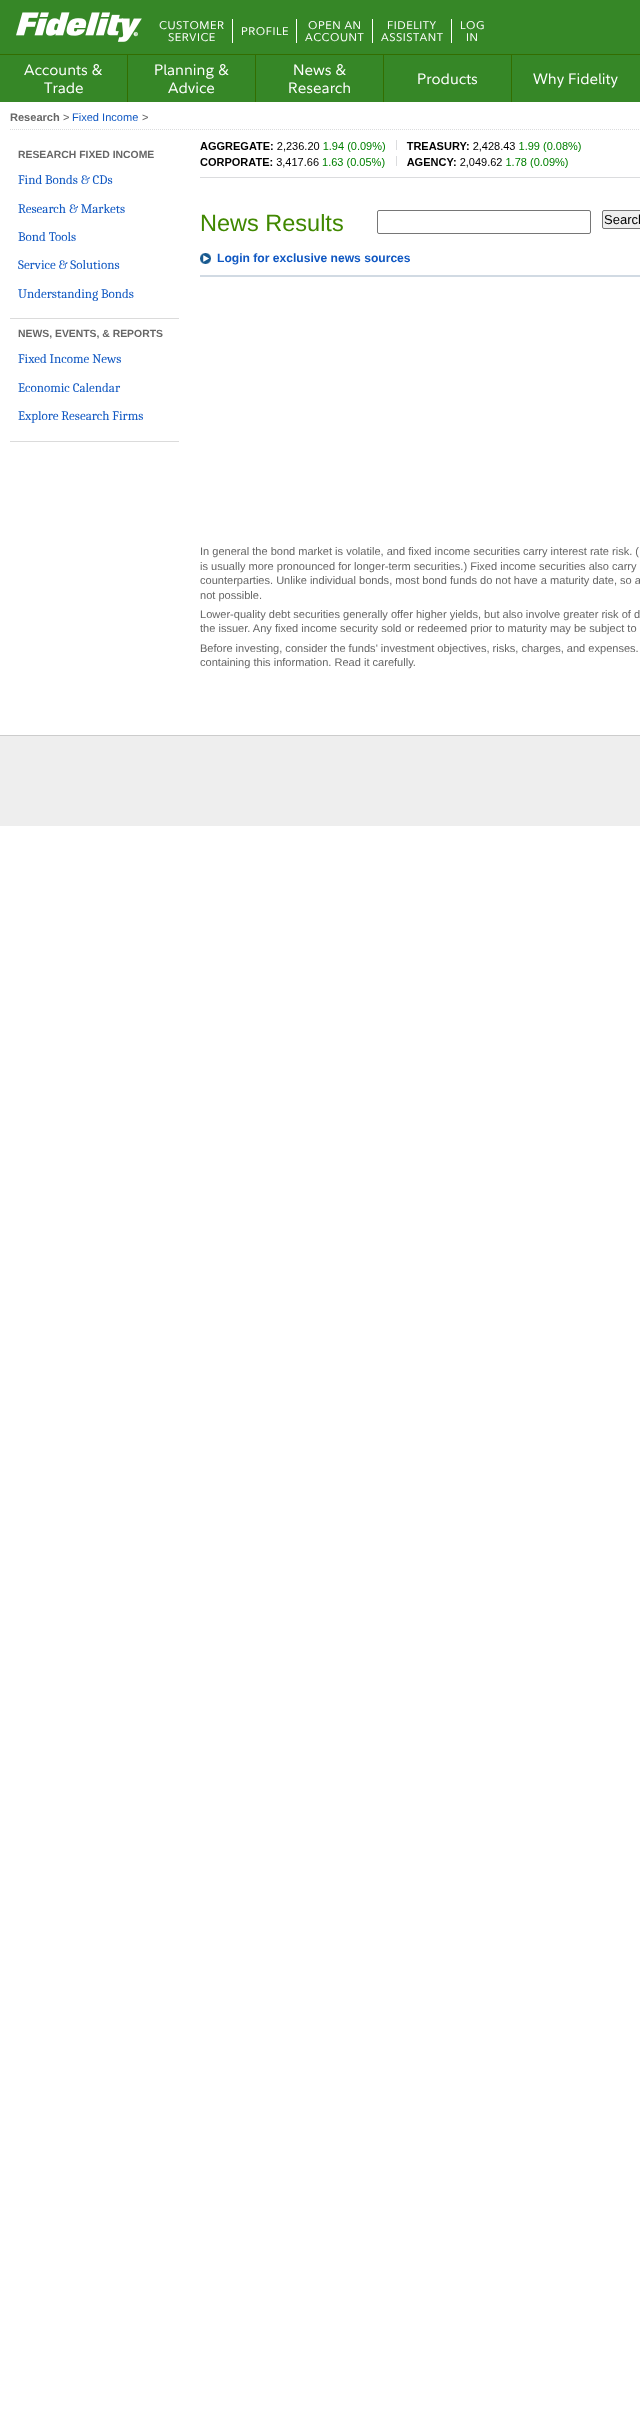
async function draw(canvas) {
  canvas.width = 640;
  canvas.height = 2416;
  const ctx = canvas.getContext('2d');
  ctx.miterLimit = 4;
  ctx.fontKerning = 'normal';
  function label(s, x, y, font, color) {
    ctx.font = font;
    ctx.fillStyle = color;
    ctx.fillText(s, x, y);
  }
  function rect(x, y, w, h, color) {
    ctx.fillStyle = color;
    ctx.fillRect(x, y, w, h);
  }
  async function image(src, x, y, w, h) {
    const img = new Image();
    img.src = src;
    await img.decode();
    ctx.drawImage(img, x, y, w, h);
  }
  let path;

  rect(0, 0, 640, 2416, '#fff');
  rect(0, 0, 640, 54, '#368727');
  await image('assets/img1.png', 16, 12, 126, 30);
  rect(232, 19, 1, 24, '#fff');
  ctx.letterSpacing = '0.5px';
  label('CUSTOMER', 159, 29, '11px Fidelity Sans', '#fff');
  label('SERVICE', 168, 41, '11px Fidelity Sans', '#fff');
  rect(296, 19, 1, 24, '#fff');
  label('PROFILE', 241, 35, '11px Fidelity Sans', '#fff');
  rect(372, 19, 1, 24, '#fff');
  label('OPEN AN', 308, 29, '11px Fidelity Sans', '#fff');
  label('ACCOUNT', 305, 41, '11px Fidelity Sans', '#fff');
  rect(451, 19, 1, 24, '#fff');
  label('FIDELITY', 387, 29, '11px Fidelity Sans', '#fff');
  label('ASSISTANT', 381, 41, '11px Fidelity Sans', '#fff');
  label('LOG', 460, 29, '11px Fidelity Sans', '#fff');
  label('IN', 466, 41, '11px Fidelity Sans', '#fff');
  rect(0, 54, 640, 1, '#336d00');
  rect(0, 55, 640, 47, '#368727');
  rect(127, 55, 1, 47, '#336d00');
  ctx.letterSpacing = '0px';
  label('Accounts &', 24, 75, '15px Fidelity Sans', '#fff');
  label('Trade', 44, 93, '15px Fidelity Sans', '#fff');
  rect(255, 55, 1, 47, '#336d00');
  label('Planning &', 154, 75, '15px Fidelity Sans', '#fff');
  label('Advice', 168, 93, '15px Fidelity Sans', '#fff');
  rect(383, 55, 1, 47, '#336d00');
  label('News &', 293, 75, '15px Fidelity Sans', '#fff');
  label('Research', 288, 93, '15px Fidelity Sans', '#fff');
  rect(511, 55, 1, 47, '#336d00');
  label('Products', 417, 84, '15px Fidelity Sans', '#fff');
  label('Why Fidelity', 533, 84, '15px Fidelity Sans', '#fff');
  path = new Path2D('M10 129.5H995');
  ctx.strokeStyle = '#dbdcde';
  ctx.setLineDash([1, 1]);
  ctx.stroke(path);
  label('Research', 10, 121, 'bold 11.05px Liberation Sans', '#666');
  label('>', 63, 121, '11.05px Liberation Sans', '#666');
  label('Fixed Income', 72, 121, '11.05px Liberation Sans', '#0f57c2');
  label('>', 142, 121, '11.05px Liberation Sans', '#666');
  label('RESEARCH FIXED INCOME', 18, 158, 'bold 10.4px Liberation Sans', '#666');
  rect(10, 318, 169, 1, '#dbdbdb');
  label('Find Bonds & CDs', 18, 184, '13px Caladea', '#0f57c2');
  label('Research & Markets', 18, 213, '13px Caladea', '#0f57c2');
  label('Bond Tools', 18, 241, '13px Caladea', '#0f57c2');
  label('Service & Solutions', 18, 269, '13px Caladea', '#0f57c2');
  label('Understanding Bonds', 18, 298, '13px Caladea', '#0f57c2');
  label('NEWS, EVENTS, & REPORTS', 18, 337, 'bold 10.4px Liberation Sans', '#666');
  rect(10, 441, 169, 1, '#dbdbdb');
  label('Fixed Income News', 18, 363, '13px Caladea', '#0f57c2');
  label('Economic Calendar', 18, 392, '13px Caladea', '#0f57c2');
  label('Explore Research Firms', 18, 420, '13px Caladea', '#0f57c2');
  await image('assets/img2.png', 200, 140, 440, 38);
  label('News Results', 200, 231, '23.5px Liberation Sans', '#408800');
  ctx.beginPath();
  ctx.roundRect(377.5, 210.5, 213, 23, 1.5);
  ctx.strokeStyle = '#767676';
  ctx.setLineDash([]);
  ctx.stroke();
  ctx.fillStyle = '#efefef';
  ctx.beginPath();
  ctx.roundRect(602.5, 210.5, 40, 18, 1.5);
  ctx.fill();
  ctx.stroke();
  label('Search', 604, 224, '13px Liberation Sans', '#000');
  await image('assets/img3.png', 200, 253, 11, 11);
  label('Login for exclusive news sources', 217, 262, 'bold 12.1px Liberation Sans', '#0f57c2');
  rect(200, 275, 440, 2, '#d1dae3');
  label('In general the bond market is volatile, and fixed income securities carry interest rate risk. (', 200, 555, '11.05px Liberation Sans', '#666');
  label('is usually more pronounced for longer-term securities.) Fixed income securities also carry', 200, 570, '11.05px Liberation Sans', '#666');
  label('counterparties. Unlike individual bonds, most bond funds do not have a maturity date, so a', 200, 584, '11.05px Liberation Sans', '#666');
  label('not possible.', 200, 599, '11.05px Liberation Sans', '#666');
  label('Lower-quality debt securities generally offer higher yields, but also involve greater risk of d', 200, 618, '11.05px Liberation Sans', '#666');
  label('the issuer. Any fixed income security sold or redeemed prior to maturity may be subject to', 200, 632, '11.05px Liberation Sans', '#666');
  label('Before investing, consider the funds\' investment objectives, risks, charges, and expenses.', 200, 652, '11.05px Liberation Sans', '#666');
  label('containing this information. Read it carefully.', 200, 666, '11.05px Liberation Sans', '#666');
  rect(0, 736, 640, 90, '#eee');
  rect(0, 735, 640, 1, '#ccc');
}

draw(document.querySelector('canvas'));
